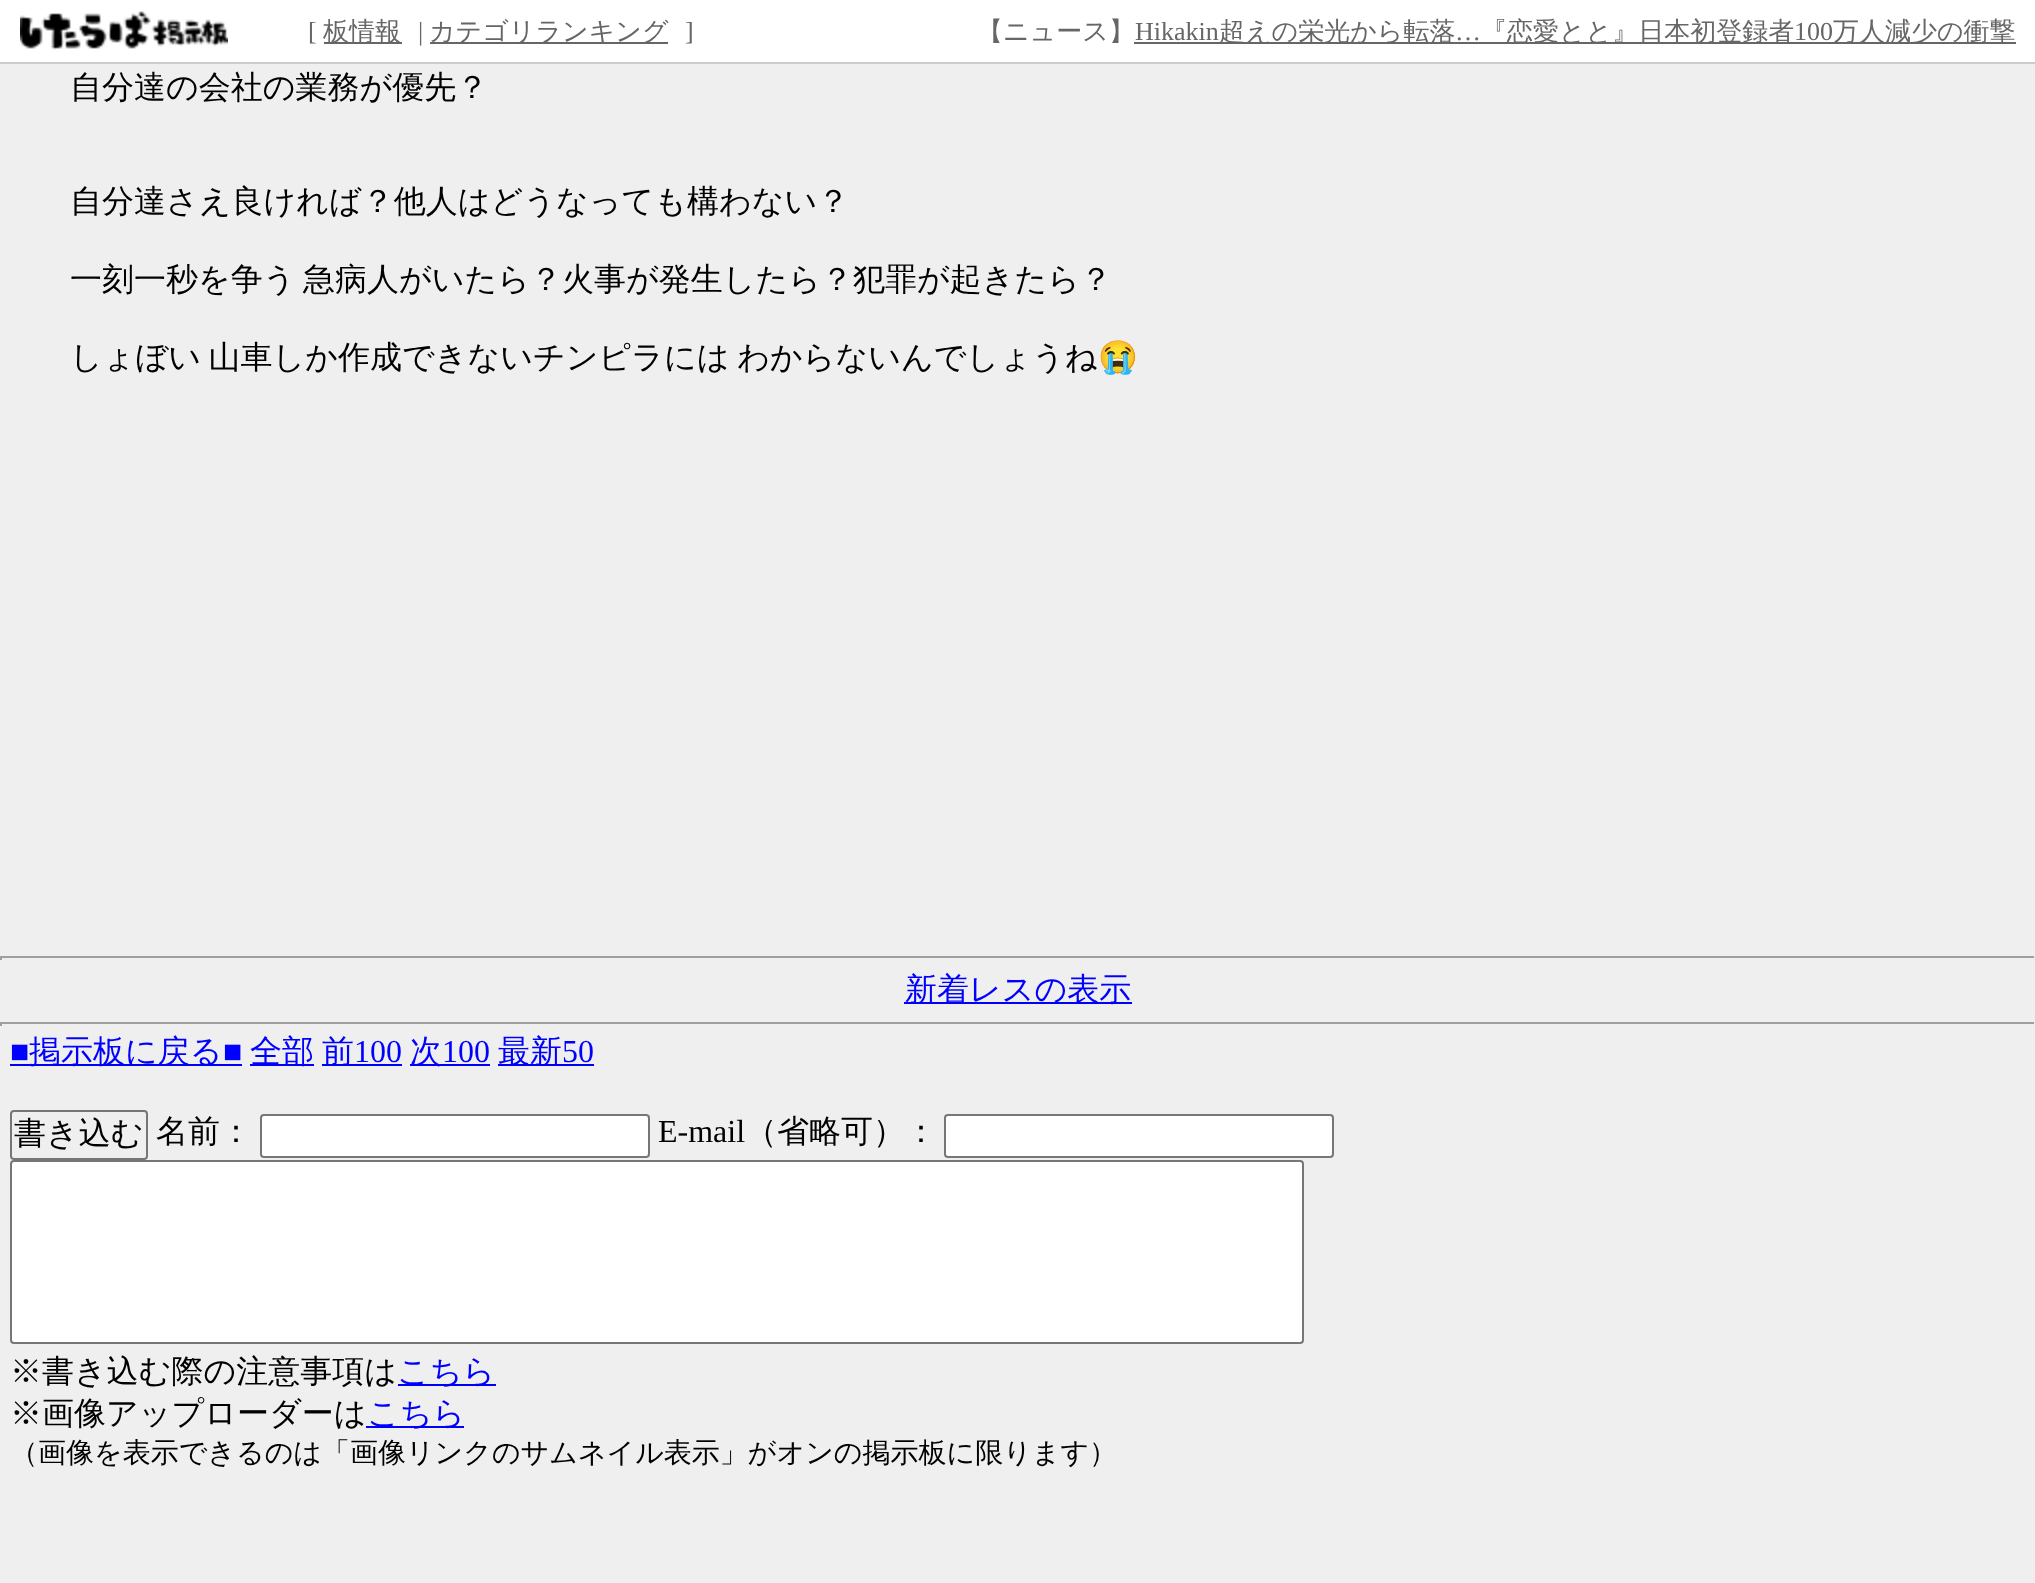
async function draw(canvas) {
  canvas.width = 2035;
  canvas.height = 1583;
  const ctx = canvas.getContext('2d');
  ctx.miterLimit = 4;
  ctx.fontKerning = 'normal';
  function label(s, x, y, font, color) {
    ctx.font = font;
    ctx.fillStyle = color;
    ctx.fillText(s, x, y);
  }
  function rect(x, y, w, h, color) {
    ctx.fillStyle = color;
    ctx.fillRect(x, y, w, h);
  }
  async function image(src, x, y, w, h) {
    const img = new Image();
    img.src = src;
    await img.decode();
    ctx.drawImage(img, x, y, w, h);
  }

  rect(0, 0, 2035, 1583, '#efefef');
  rect(0, 0, 2035, 62, '#fff');
  rect(0, 62, 2035, 2, '#ccc');
  await image('assets/img1.png', 20, 11, 208, 39);
  label('[', 308, 40, '26px Liberation Serif', '#666');
  rect(324, 42, 78, 2, '#666');
  label('板情報', 323, 40, '500 26px WenQuanYi Zen Hei', '#666');
  label('|', 418, 40, '26px Liberation Serif', '#666');
  rect(430, 42, 238, 2, '#666');
  label('カテゴリランキング', 429, 40, '500 26px WenQuanYi Zen Hei', '#666');
  label(']', 685, 40, '26px Liberation Serif', '#666');
  label('【ニュース】', 977, 40, '500 26px WenQuanYi Zen Hei', '#666');
  label('Hikakin', 1135, 40, '26px Liberation Serif', '#666');
  rect(1134, 42, 882, 2, '#666');
  label('超えの栄光から転落', 1219, 40, '500 26px WenQuanYi Zen Hei', '#666');
  label('…', 1455, 40, '26px Liberation Serif', '#666');
  label('『恋愛とと』日本初登録者', 1481, 40, '500 26px WenQuanYi Zen Hei', '#666');
  label('100', 1794, 40, '26px Liberation Serif', '#666');
  label('万人減少の衝撃', 1833, 40, '500 26px WenQuanYi Zen Hei', '#666');
  label('自分達の会社の業務が優先？', 70, 98, '500 32px WenQuanYi Zen Hei', '#000');
  label('自分達さえ良ければ？他人はどうなっても構わない？', 70, 212, '500 32px WenQuanYi Zen Hei', '#000');
  ctx.wordSpacing = '-2px';
  label('一刻一秒を争う 急病人がいたら？火事が発生したら？犯罪が起きたら？', 70, 290, '500 32px WenQuanYi Zen Hei', '#000');
  label('しょぼい 山車しか作成できないチンピラには わからないんでしょうね', 70, 368, '500 32px WenQuanYi Zen Hei', '#000');
  ctx.wordSpacing = '0px';
  label('😭', 1098, 368, '32px Noto Color Emoji', '#000');
  rect(0, 956, 2035, 2, '#9f9f9f');
  rect(2034, 956, 1, 4, '#eee');
  rect(0, 956, 2, 4, '#9f9f9f');
  rect(904, 1002, 228, 2, '#00f');
  label('新着レスの表示', 905, 1000, '500 32px WenQuanYi Zen Hei', '#00f');
  rect(0, 1022, 2035, 2, '#9f9f9f');
  rect(2034, 1022, 1, 4, '#eee');
  rect(0, 1022, 2, 4, '#9f9f9f');
  label('■', 10, 1062, '32px Liberation Serif', '#00f');
  rect(10, 1064, 232, 2, '#00f');
  label('掲示板に戻る', 29, 1062, '500 32px WenQuanYi Zen Hei', '#00f');
  label('■', 223, 1062, '32px Liberation Serif', '#00f');
  rect(250, 1064, 64, 2, '#00f');
  label('全部', 250, 1062, '500 32px WenQuanYi Zen Hei', '#00f');
  rect(322, 1064, 80, 2, '#00f');
  label('前', 322, 1062, '500 32px WenQuanYi Zen Hei', '#00f');
  label('100', 354, 1062, '32px Liberation Serif', '#00f');
  rect(410, 1064, 80, 2, '#00f');
  label('次', 410, 1062, '500 32px WenQuanYi Zen Hei', '#00f');
  label('100', 442, 1062, '32px Liberation Serif', '#00f');
  rect(498, 1064, 96, 2, '#00f');
  label('最新', 498, 1062, '500 32px WenQuanYi Zen Hei', '#00f');
  label('50', 562, 1062, '32px Liberation Serif', '#00f');
  ctx.beginPath();
  ctx.roundRect(11, 1111, 136, 48, 3);
  ctx.strokeStyle = '#767676';
  ctx.lineWidth = 2;
  ctx.stroke();
  label('書き込む', 14, 1144, '500 32px WenQuanYi Zen Hei', '#000');
  label('名前：', 156, 1142, '500 32px WenQuanYi Zen Hei', '#000');
  ctx.fillStyle = '#fff';
  ctx.beginPath();
  ctx.roundRect(261, 1115, 388, 42, 3);
  ctx.fill();
  ctx.stroke();
  label('E-mail', 658, 1142, '32px Liberation Serif', '#000');
  label('（省略可）：', 745, 1142, '500 32px WenQuanYi Zen Hei', '#000');
  ctx.fillStyle = '#fff';
  ctx.beginPath();
  ctx.roundRect(945, 1115, 388, 42, 3);
  ctx.fill();
  ctx.stroke();
  ctx.beginPath();
  ctx.roundRect(11, 1161, 1292, 182, 3);
  ctx.fill();
  ctx.stroke();
  label('※書き込む際の注意事項は', 10, 1382, '500 32px WenQuanYi Zen Hei', '#000');
  rect(398, 1384, 98, 2, '#00f');
  label('こちら', 397, 1382, '500 32px WenQuanYi Zen Hei', '#00f');
  label('※画像アップローダーは', 10, 1424, '500 32px WenQuanYi Zen Hei', '#000');
  rect(366, 1426, 98, 2, '#00f');
  label('こちら', 367, 1424, '500 32px WenQuanYi Zen Hei', '#00f');
  label('（画像を表示できるのは「画像リンクのサムネイル表示」がオンの掲示板に限ります）', 10, 1462, '500 28px WenQuanYi Zen Hei', '#000');
}

draw(document.querySelector('canvas'));
